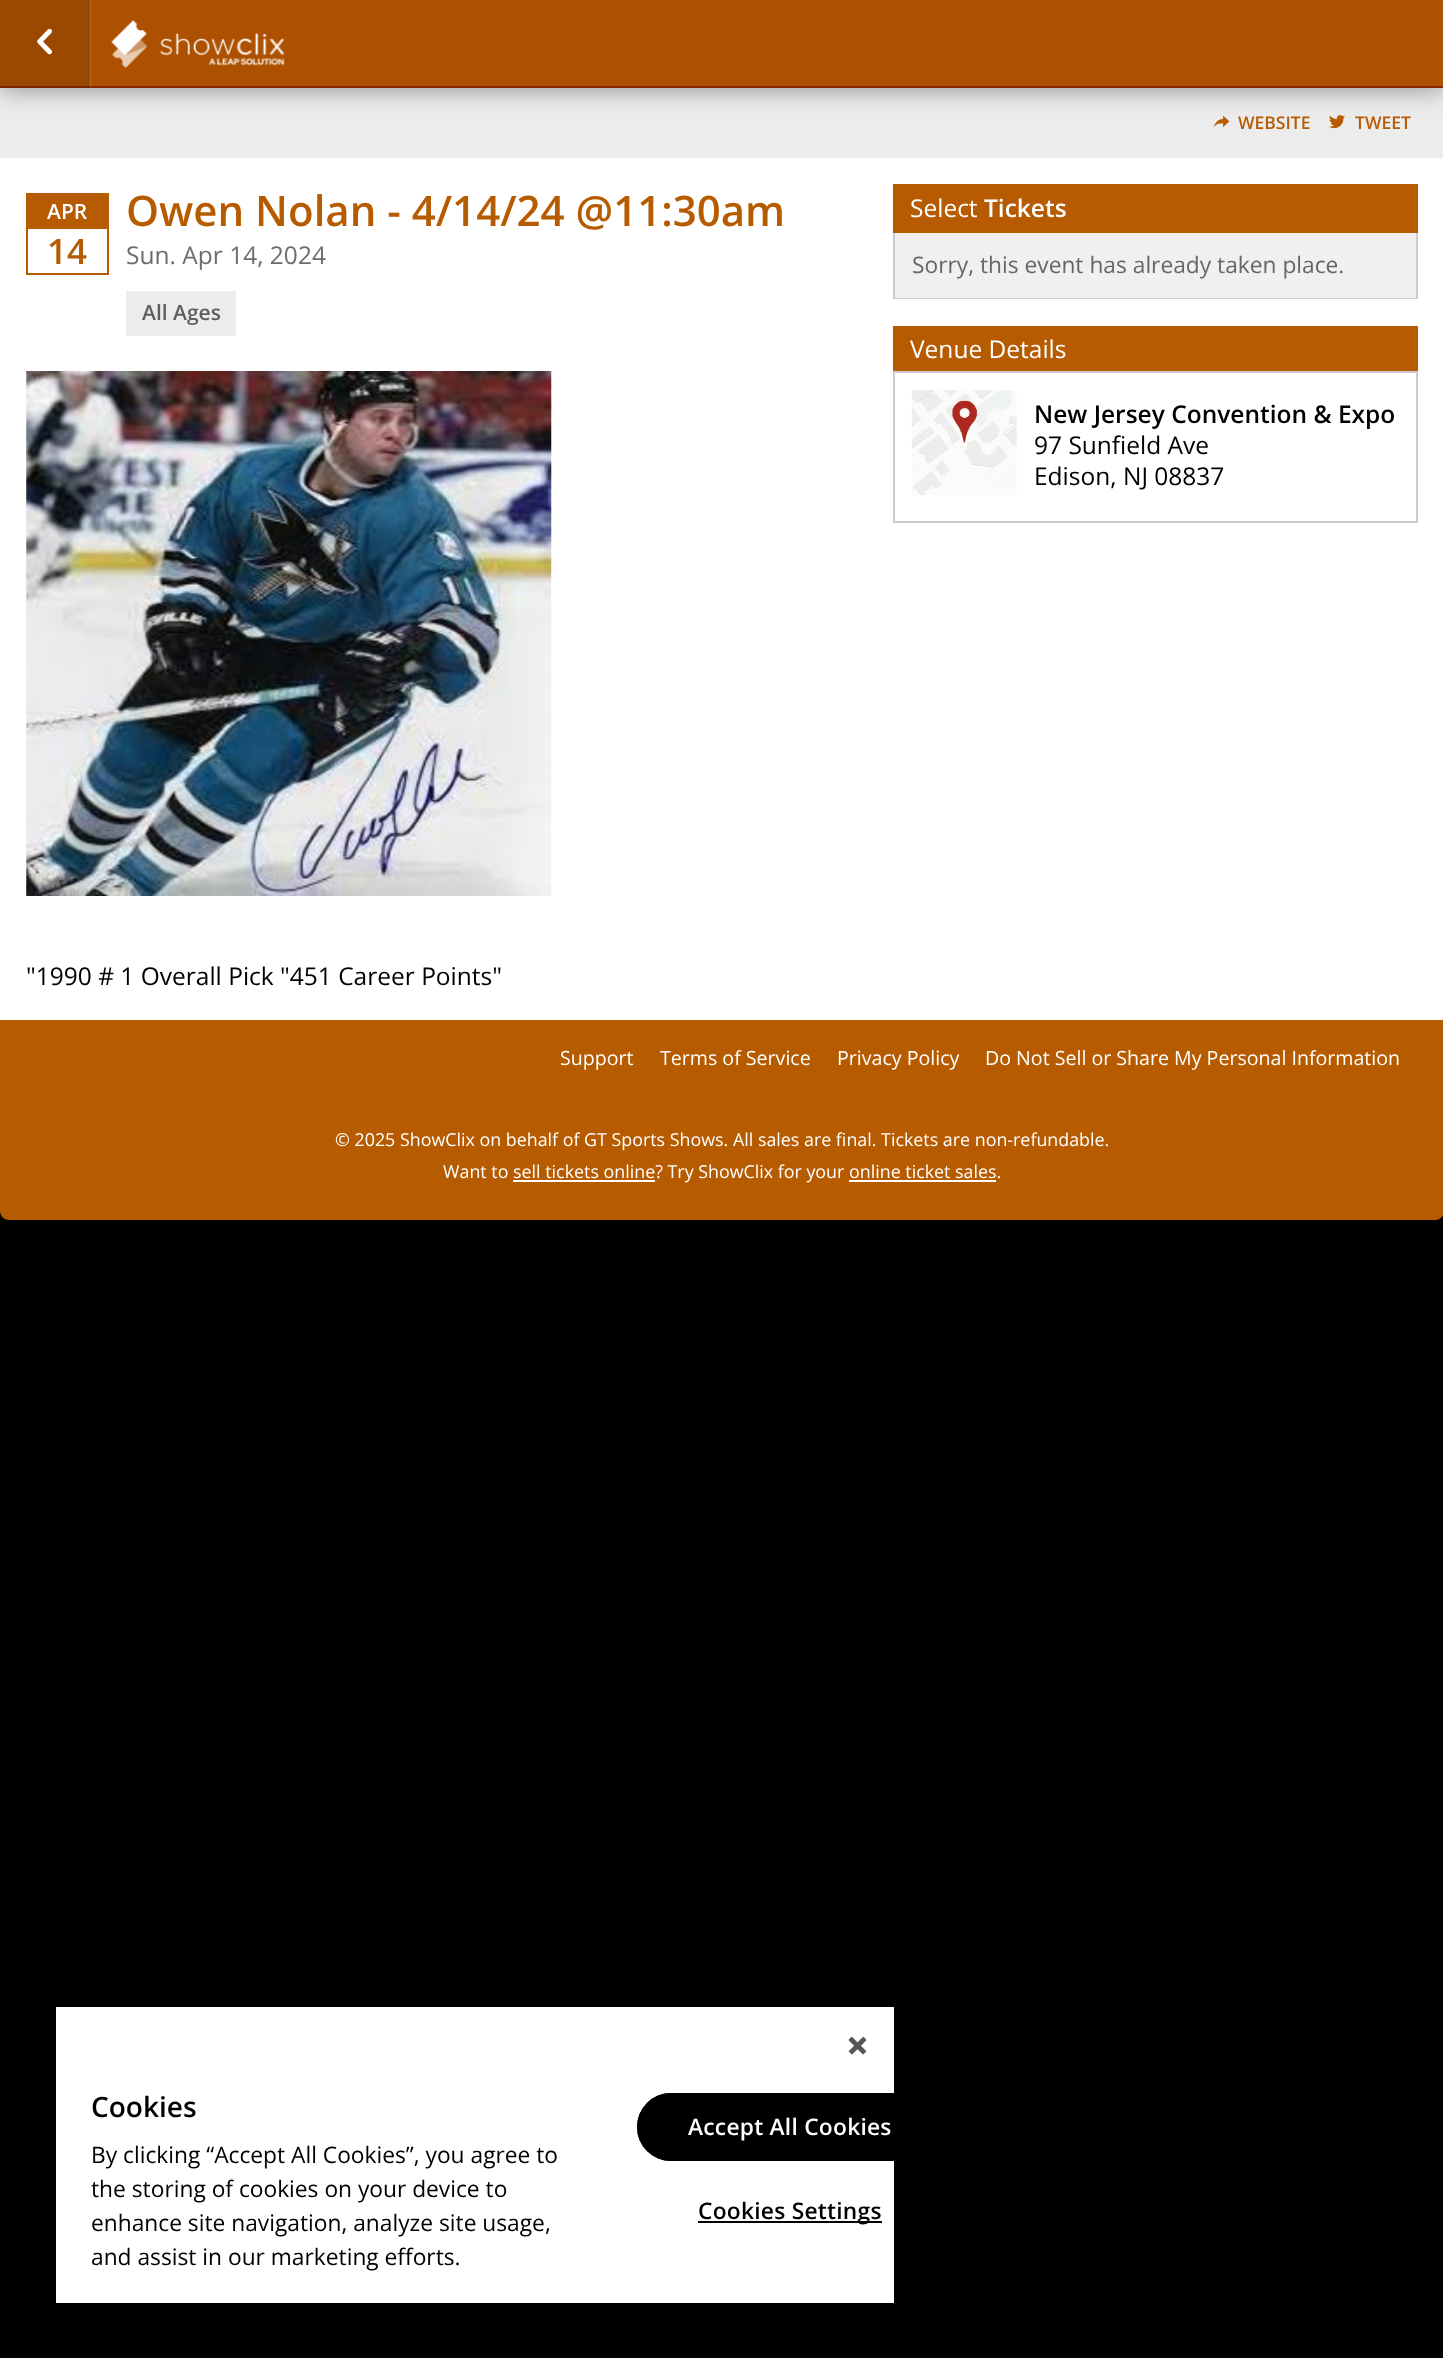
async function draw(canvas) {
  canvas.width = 1443;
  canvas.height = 2358;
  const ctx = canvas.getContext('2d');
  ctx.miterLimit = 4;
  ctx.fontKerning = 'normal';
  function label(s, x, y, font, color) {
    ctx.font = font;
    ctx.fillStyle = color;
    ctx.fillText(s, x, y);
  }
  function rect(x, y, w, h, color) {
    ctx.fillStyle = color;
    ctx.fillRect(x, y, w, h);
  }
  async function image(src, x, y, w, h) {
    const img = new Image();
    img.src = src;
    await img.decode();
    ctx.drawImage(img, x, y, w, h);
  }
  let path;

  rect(0, 0, 1443, 2358, '#000');
  rect(0, 88, 1443, 70, '#ececec');
  await image('assets/img3.png', 1213, 115, 17, 13);
  await image('assets/img4.png', 1329, 115, 16, 14);
  ctx.fillStyle = '#00000066';
  ctx.filter = 'blur(13px)';
  ctx.beginPath();
  ctx.rect(0, 2, 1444, 87);
  ctx.fill();
  ctx.filter = 'none';
  rect(0, 0, 1443, 86, '#ad5100');
  rect(0, 86, 1443, 2, '#852900');
  rect(89, 0, 2, 88, '#ffffff1a');
  rect(0, 0, 89, 88, '#0000001a');
  rect(88, 0, 2, 88, '#0000001a');
  await image('assets/img1.png', 37, 28, 15, 27);
  await image('assets/img2.png', 111, 20, 174, 49);
  rect(0, 158, 1443, 862, '#fff');
  label('WEBSITE', 1238, 129, '600 17.5px Open Sans', '#b75b01');
  label('TWEET', 1355, 129, '600 17.5px Open Sans', '#b75b01');
  ctx.strokeStyle = '#b75b01';
  ctx.lineWidth = 2;
  ctx.strokeRect(27, 194, 81, 80);
  rect(28, 195, 79, 34, '#b75b01');
  label('APR', 47, 219, '600 21px Open Sans', '#fff');
  label('14', 47, 264, '600 35px Open Sans', '#b75b01');
  label('Owen Nolan - 4/14/24 @11:30am', 126, 226, '600 42px Open Sans', '#b75b01');
  label('Sun. Apr 14, 2024', 126, 264, '24.5px Open Sans', '#6d6d6d');
  rect(126, 291, 110, 45, '#ececec');
  label('All Ages', 142, 320, '600 21px Open Sans', '#5e5e5e');
  await image('assets/img5.png', 26, 371, 526, 525);
  label('"1990 # 1 Overall Pick "451 Career Points"', 26, 985, '24.5px Open Sans', '#000');
  rect(893, 184, 525, 49, '#b75b01');
  label('Select', 910, 217, '24.5px Open Sans', '#fff');
  label('Tickets', 984, 217, '600 24.5px Open Sans', '#fff');
  rect(895, 233, 521, 65, '#f0f0f0');
  rect(1416, 233, 2, 66, '#ccc');
  rect(893, 298, 525, 1, '#ccc');
  rect(893, 233, 2, 66, '#ccc');
  label('Sorry, this event has already taken place.', 912, 273, '22.75px Open Sans', '#666');
  rect(893, 326, 525, 45, '#b75b01');
  label('Venue Details', 910, 358, '24.5px Open Sans', '#fff');
  ctx.strokeStyle = '#ccc';
  ctx.strokeRect(894, 372, 523, 150);
  await image('assets/img6.png', 911, 390, 106, 106);
  label('New Jersey Convention & Expo', 1034, 423, '600 24.5px Open Sans', '#000');
  label('97 Sunfield Ave', 1034, 454, '24.5px Open Sans', '#000');
  label('Edison, NJ 08837', 1034, 485, '24.5px Open Sans', '#000');
  rect(0, 1020, 1443, 77, '#b75b01');
  label('Support', 560, 1065, '19.6px Open Sans', '#fff');
  label('Terms of Service', 660, 1065, '19.6px Open Sans', '#fff');
  label('Privacy Policy', 837, 1065, '19.6px Open Sans', '#fff');
  label('Do Not Sell or Share My Personal Information', 985, 1065, '19.6px Open Sans', '#fff');
  ctx.fillStyle = '#b75b01';
  path = new Path2D('M0 1097H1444V1211C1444 1216 1440 1220 1435 1220H9C4 1220 0 1216 0 1211Z');
  ctx.fill(path);
  label('© 2025 ShowClix on behalf of GT Sports Shows.', 335, 1146, '17.85px Open Sans', '#fff');
  label('All sales are final. Tickets are non-refundable.', 733, 1146, '17.85px Open Sans', '#fff');
  label('Want to sell tickets online? Try ShowClix for your', 443, 1178, '17.85px Open Sans', '#fff');
  rect(513, 1180, 142, 2, '#fff');
  label('online ticket sales.', 849, 1178, '17.85px Open Sans', '#fff');
  rect(849, 1180, 147, 2, '#fff');
  rect(56, 2007, 838, 296, '#fff');
  await image('assets/img7.png', 848, 2036, 19, 19);
  label('Cookies', 91, 2117, '600 28px Open Sans', '#000');
  label('By clicking “Accept All Cookies”, you agree to', 91, 2163, '22.75px Open Sans', '#000');
  label('the storing of cookies on your device to', 91, 2197, '22.75px Open Sans', '#000');
  label('enhance site navigation, analyze site usage,', 91, 2231, '22.75px Open Sans', '#000');
  label('and assist in our marketing efforts.', 91, 2265, '22.75px Open Sans', '#000');
  ctx.beginPath();
  ctx.roundRect(637, 2093, 257, 68, [34, 0, 0, 34]);
  ctx.fill();
  ctx.save();
  ctx.beginPath();
  ctx.rect(56, 2007, 838, 296);
  ctx.clip();
  ctx.beginPath();
  ctx.roundRect(638, 2094, 304, 66, 33);
  ctx.strokeStyle = '#000';
  ctx.stroke();
  ctx.restore();
  ctx.letterSpacing = '0.25px';
  label('Accept All Cookies', 688, 2135, '600 22.75px Open Sans', '#fff');
  rect(698, 2221, 184, 2, '#000');
  label('Cookies Settings', 698, 2219, '600 22.75px Open Sans', '#000');
}

draw(document.querySelector('canvas'));
